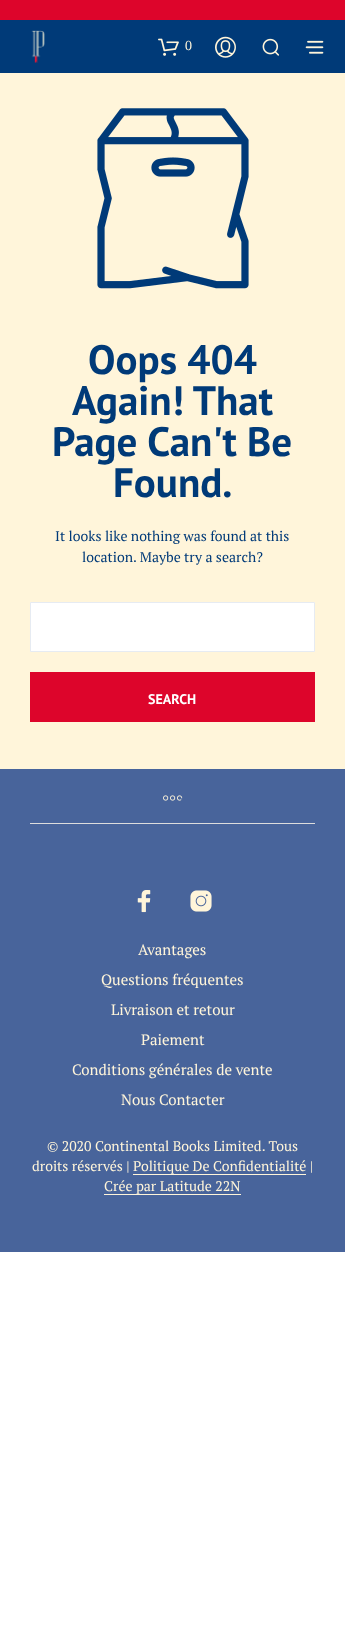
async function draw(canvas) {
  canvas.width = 345;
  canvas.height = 1632;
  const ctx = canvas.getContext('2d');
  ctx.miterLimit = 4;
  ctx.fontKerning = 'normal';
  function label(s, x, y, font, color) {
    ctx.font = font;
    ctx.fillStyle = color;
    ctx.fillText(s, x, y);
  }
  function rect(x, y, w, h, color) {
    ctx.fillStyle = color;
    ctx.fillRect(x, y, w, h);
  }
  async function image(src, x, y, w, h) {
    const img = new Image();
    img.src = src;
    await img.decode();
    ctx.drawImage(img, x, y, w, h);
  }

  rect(0, 0, 345, 1632, '#fff');
  rect(0, 73, 345, 696, '#fff5da');
  rect(0, 0, 345, 20, '#dd052b');
  rect(0, 20, 345, 53, '#003a78');
  await image('assets/img1.png', 31, 30, 14, 33);
  await image('assets/img2.png', 158, 38, 21, 18);
  label('0', 185, 50, '13px PT Serif', '#fff5da');
  await image('assets/img3.png', 215, 36, 21, 22);
  await image('assets/img4.png', 262, 38, 17, 18);
  await image('assets/img5.png', 305, 40, 19, 14);
  await image('assets/img6.png', 97, 108, 152, 181);
  label('Oops 404', 88, 374, 'bold 41px PT Sans', '#003a78');
  label('Again! That', 72, 415, 'bold 41px PT Sans', '#003a78');
  label('Page Can\'t Be', 52, 456, 'bold 41px PT Sans', '#003a78');
  label('Found.', 113, 497, 'bold 41px PT Sans', '#003a78');
  label('It looks like nothing was found at this', 55, 541, '14px PT Serif', '#003a78');
  label('location. Maybe try a search?', 82, 562, '14px PT Serif', '#003a78');
  ctx.fillStyle = '#fff';
  ctx.beginPath();
  ctx.rect(30.5, 602.5, 284, 49);
  ctx.fill();
  ctx.strokeStyle = '#e6ebf2';
  ctx.stroke();
  rect(30, 672, 285, 50, '#dd052b');
  label('SEARCH', 148, 704, 'bold 14px PT Sans', '#fff');
  rect(0, 769, 345, 483, '#48649b');
  rect(30, 823, 285, 1, '#ddd');
  await image('assets/img7.png', 163, 795, 20, 6);
  await image('assets/img8.png', 137, 890, 14, 23);
  await image('assets/img9.png', 190, 890, 22, 22);
  label('Avantages', 138, 955, '15px PT Serif', '#fff5da');
  label('Questions fréquentes', 101, 985, '15px PT Serif', '#fff5da');
  label('Livraison et retour', 111, 1015, '15px PT Serif', '#fff5da');
  label('Paiement', 141, 1045, '15px PT Serif', '#fff5da');
  label('Conditions générales de vente', 72, 1075, '15px PT Serif', '#fff5da');
  label('Nous Contacter', 121, 1105, '15px PT Serif', '#fff5da');
  label('© 2020 Continental Books Limited. Tous', 47, 1151, '14px PT Serif', '#fff5da');
  label('droits réservés | Politique De Confidentialité |', 32, 1171, '14px PT Serif', '#fff5da');
  rect(133, 1174, 173, 1, '#fff5da');
  rect(104, 1194, 137, 1, '#fff5da');
  label('Crée par Latitude 22N', 104, 1191, '14px PT Serif', '#fff5da');
}

draw(document.querySelector('canvas'));
